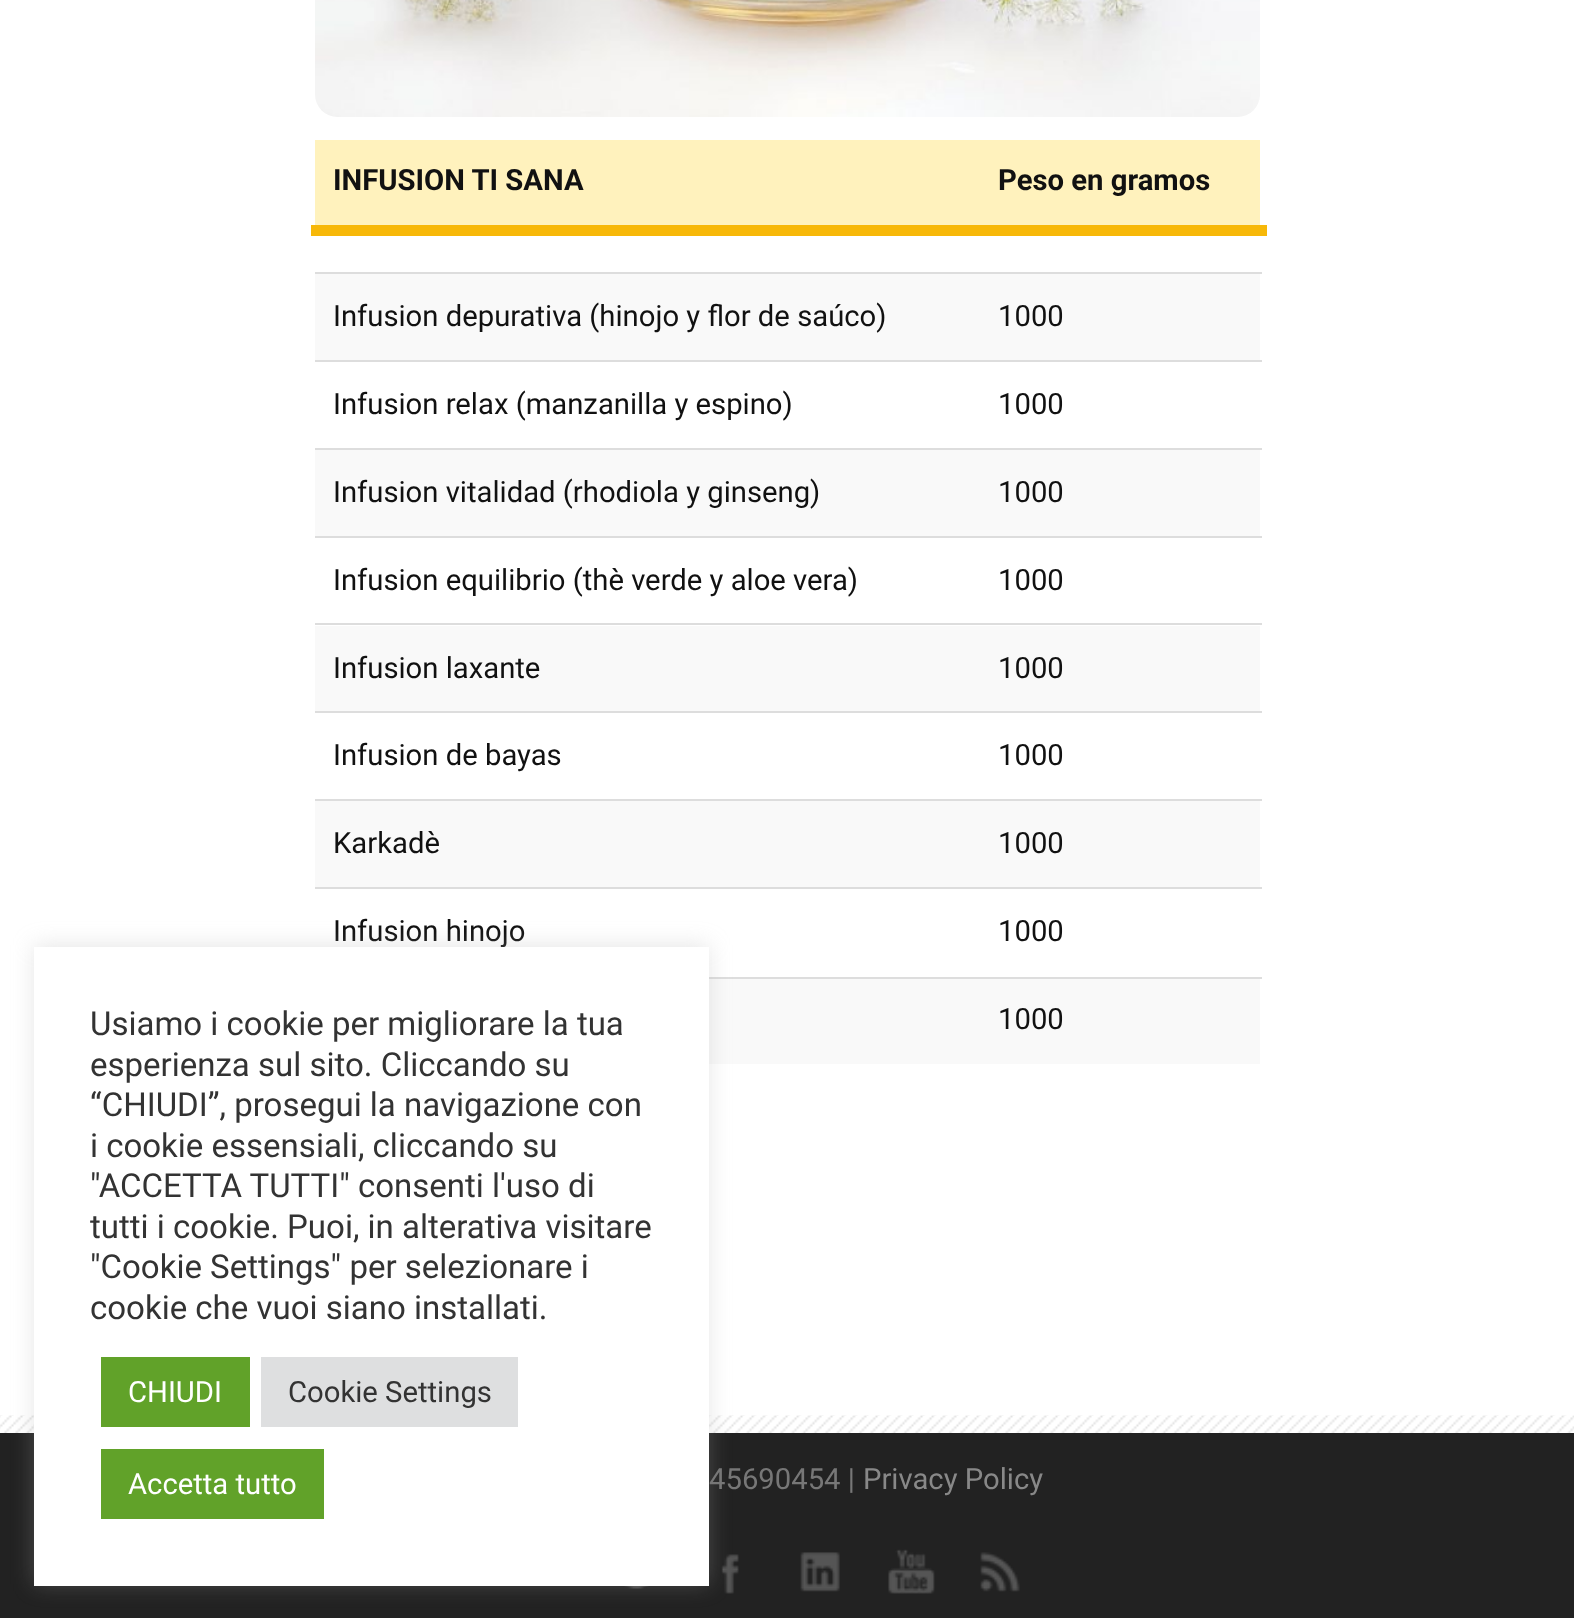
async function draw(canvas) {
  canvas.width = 1574;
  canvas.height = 1618;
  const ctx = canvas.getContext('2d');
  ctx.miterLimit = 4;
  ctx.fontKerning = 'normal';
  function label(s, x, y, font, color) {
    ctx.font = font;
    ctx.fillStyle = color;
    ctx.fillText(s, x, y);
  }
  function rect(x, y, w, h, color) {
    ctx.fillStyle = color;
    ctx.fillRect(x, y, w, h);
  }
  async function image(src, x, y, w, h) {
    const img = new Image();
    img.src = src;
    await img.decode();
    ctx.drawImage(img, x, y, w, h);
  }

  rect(0, 0, 1574, 1618, '#fff');
  await image('assets/img1.png', 315, 0, 945, 117);
  rect(315, 140, 945, 85, '#fff2bd');
  label('INFUSION TI SANA', 333, 190, 'bold 29.25px Roboto', '#111');
  rect(311, 225, 956, 11, '#f7b808');
  label('Peso en gramos', 998, 190, 'bold 29.25px Roboto', '#111');
  rect(315, 274, 945, 86, '#f9f9f9');
  label('Infusion depurativa (hinojo y flor de saúco)', 333, 326, '29.25px Roboto', '#111');
  rect(315, 272, 947, 2, '#ddd');
  label('1000', 998, 326, '29.25px Roboto', '#111');
  label('Infusion relax (manzanilla y espino)', 333, 414, '29.25px Roboto', '#111');
  rect(315, 360, 947, 2, '#ddd');
  label('1000', 998, 414, '29.25px Roboto', '#111');
  rect(315, 450, 945, 86, '#f9f9f9');
  label('Infusion vitalidad (rhodiola y ginseng)', 333, 502, '29.25px Roboto', '#111');
  rect(315, 448, 947, 2, '#ddd');
  label('1000', 998, 502, '29.25px Roboto', '#111');
  label('Infusion equilibrio (thè verde y aloe vera)', 333, 590, '29.25px Roboto', '#111');
  rect(315, 536, 947, 2, '#ddd');
  label('1000', 998, 590, '29.25px Roboto', '#111');
  rect(315, 626, 945, 85, '#f9f9f9');
  label('Infusion laxante', 333, 678, '29.25px Roboto', '#111');
  rect(315, 623, 947, 2, '#ddd');
  label('1000', 998, 678, '29.25px Roboto', '#111');
  label('Infusion de bayas', 333, 765, '29.25px Roboto', '#111');
  rect(315, 711, 947, 2, '#ddd');
  label('1000', 998, 765, '29.25px Roboto', '#111');
  rect(315, 801, 945, 86, '#f9f9f9');
  label('Karkadè', 333, 853, '29.25px Roboto', '#111');
  rect(315, 799, 947, 2, '#ddd');
  label('1000', 998, 853, '29.25px Roboto', '#111');
  label('Infusion hinojo', 333, 941, '29.25px Roboto', '#111');
  rect(315, 887, 947, 2, '#ddd');
  label('1000', 998, 941, '29.25px Roboto', '#111');
  rect(709, 979, 551, 85, '#f9f9f9');
  rect(709, 977, 553, 2, '#ddd');
  label('1000', 998, 1029, '29.25px Roboto', '#111');
  await image('assets/img2.png', 0, 1415, 1574, 18);
  rect(0, 1433, 1574, 185, '#222');
  await image('assets/img3.png', 624, 1586, 25, 3);
  await image('assets/img4.png', 721, 1554, 18, 40);
  ctx.fillStyle = '#acabab4d';
  ctx.filter = 'blur(11px)';
  ctx.beginPath();
  ctx.rect(34, 945, 675, 639);
  ctx.fill();
  ctx.filter = 'none';
  rect(34, 947, 675, 639, '#fff');
  label('Usiamo i cookie per migliorare la tua', 90, 1035, '33px Roboto', '#333');
  label('esperienza sul sito. Cliccando su', 90, 1076, '33px Roboto', '#333');
  label('“CHIUDI”, prosegui la navigazione con', 90, 1116, '33px Roboto', '#333');
  label('i cookie essensiali, cliccando su', 90, 1157, '33px Roboto', '#333');
  label('"ACCETTA TUTTI" consenti l\'uso di', 90, 1197, '33px Roboto', '#333');
  label('tutti i cookie. Puoi, in alterativa visitare', 90, 1238, '33px Roboto', '#333');
  label('"Cookie Settings" per selezionare i', 90, 1278, '33px Roboto', '#333');
  label('cookie che vuoi siano installati.', 90, 1319, '33px Roboto', '#333');
  rect(101, 1357, 149, 70, '#61a229');
  label('CHIUDI', 128, 1402, '29.25px Roboto', '#fff');
  rect(261, 1357, 257, 70, '#dedfe0');
  label('Cookie Settings', 288, 1402, '29.25px Roboto', '#333');
  rect(101, 1449, 223, 70, '#61a229');
  label('Accetta tutto', 128, 1494, '29.25px Roboto', '#fff');
  label('45690454 |', 709, 1489, '29.25px Roboto', '#777');
  label('Privacy Policy', 863, 1489, '29.25px Roboto', '#888');
  await image('assets/img5.png', 800, 1552, 40, 40);
  await image('assets/img6.png', 888, 1549, 47, 45);
  await image('assets/img7.png', 980, 1552, 40, 40);
}

draw(document.querySelector('canvas'));
